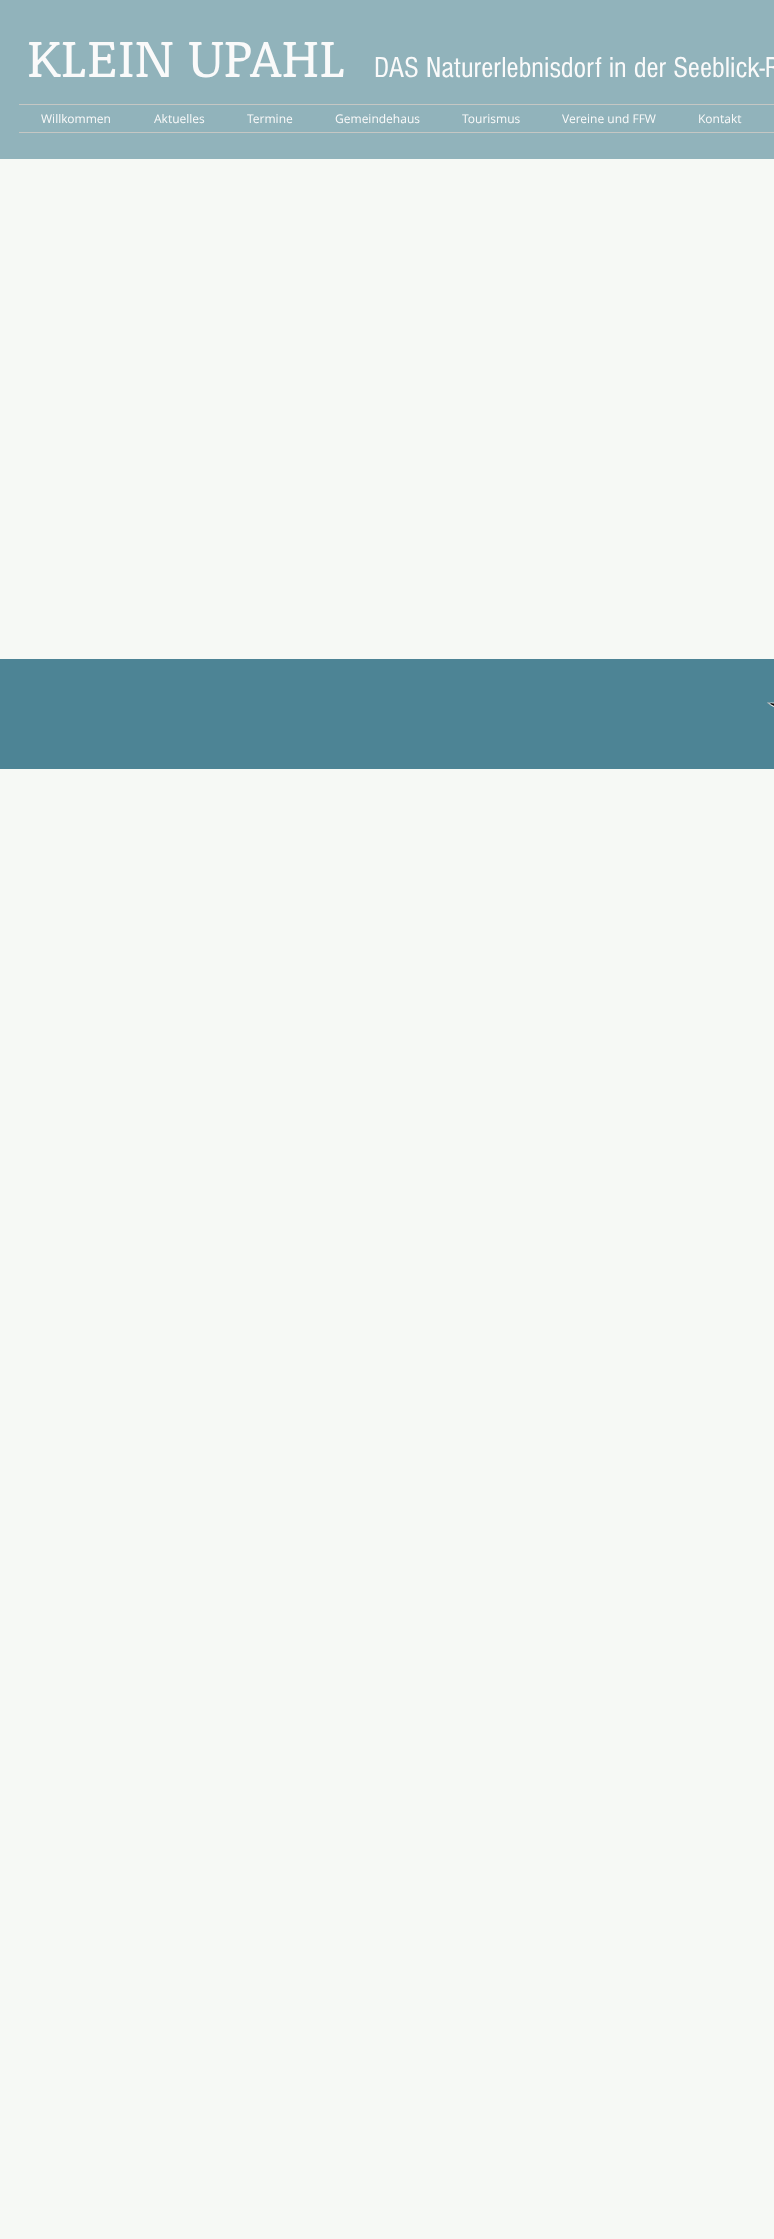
async function draw(canvas) {
  canvas.width = 774;
  canvas.height = 2239;
  const ctx = canvas.getContext('2d');
  ctx.miterLimit = 4;
  ctx.fontKerning = 'normal';
  function label(s, x, y, font, color) {
    ctx.font = font;
    ctx.fillStyle = color;
    ctx.fillText(s, x, y);
  }
  function rect(x, y, w, h, color) {
    ctx.fillStyle = color;
    ctx.fillRect(x, y, w, h);
  }
  async function image(src, x, y, w, h) {
    const img = new Image();
    img.src = src;
    await img.decode();
    ctx.drawImage(img, x, y, w, h);
  }

  rect(0, 0, 774, 2239, '#f6f9f5');
  rect(0, 0, 774, 159, '#91b3bb');
  label('KLEIN UPAHL', 27, 77, '53px Noticia Text', '#fafafa');
  label('DAS Naturerlebnisdorf in der Seeblick-R', 374, 77, '30px "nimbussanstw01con"', '#fafafa');
  rect(19, 104, 755, 1, '#c5c7c4');
  rect(19, 132, 755, 1, '#c5c7c4');
  label('Willkommen', 41, 123, '12px Open Sans', '#fafafa');
  label('Aktuelles', 154, 123, '12px Open Sans', '#fafafa');
  label('Termine', 247, 123, '12px Open Sans', '#fafafa');
  label('Gemeindehaus', 335, 123, '12px Open Sans', '#fafafa');
  label('Tourismus', 462, 123, '12px Open Sans', '#fafafa');
  label('Vereine und FFW', 562, 123, '12px Open Sans', '#fafafa');
  label('Kontakt', 698, 123, '12px Open Sans', '#fafafa');
  rect(0, 659, 774, 110, '#4d8495');
  await image('assets/img1.png', 767, 702, 7, 5);
}

draw(document.querySelector('canvas'));
